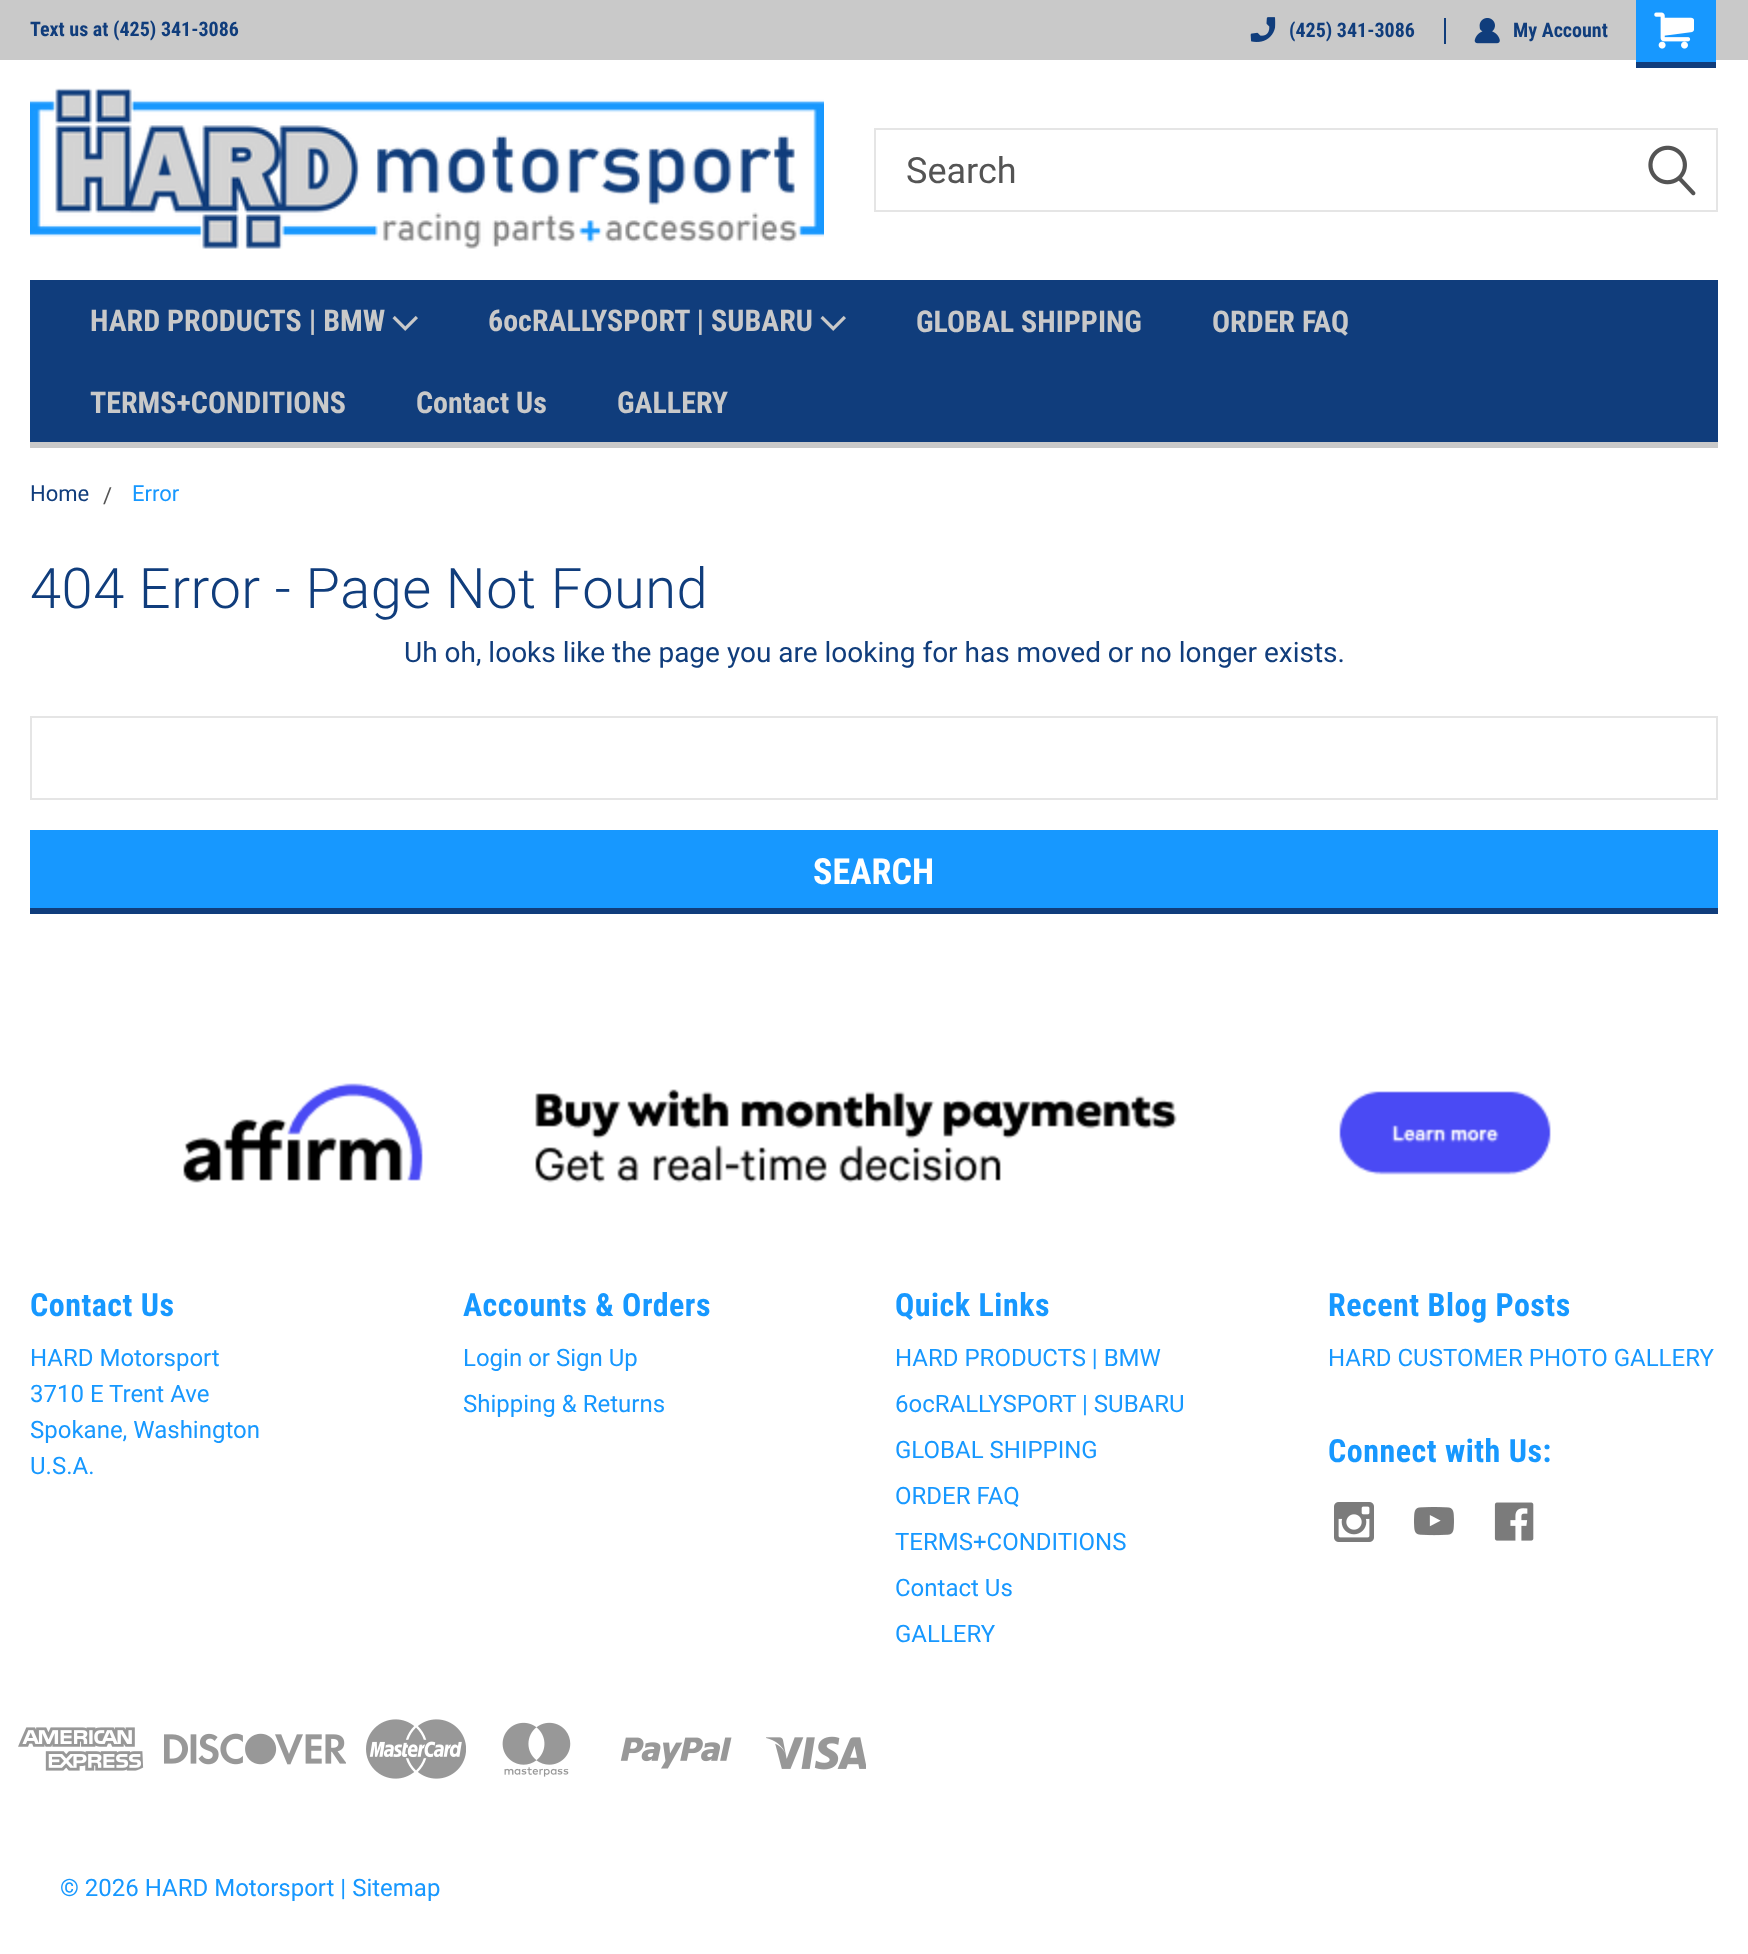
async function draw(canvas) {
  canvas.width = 1748;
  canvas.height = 1954;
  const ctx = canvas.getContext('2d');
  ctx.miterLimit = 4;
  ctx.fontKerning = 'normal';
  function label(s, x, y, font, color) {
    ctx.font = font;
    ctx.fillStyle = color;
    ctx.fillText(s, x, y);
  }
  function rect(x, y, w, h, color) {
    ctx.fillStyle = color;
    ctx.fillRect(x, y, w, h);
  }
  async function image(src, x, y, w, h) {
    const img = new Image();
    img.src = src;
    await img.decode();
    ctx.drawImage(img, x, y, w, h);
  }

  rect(0, 0, 1748, 1954, '#fff');
  rect(0, 0, 1748, 60, '#c9c9c9');
  label('Text us at (425) 341-3086', 30, 36, 'bold 20px Roboto Condensed', '#103d7c');
  rect(1444, 18, 2, 26, '#103d7c');
  await image('assets/img1.png', 1250, 17, 26, 25);
  label('(425) 341-3086', 1289, 37, 'bold 20px Roboto Condensed', '#103d7c');
  await image('assets/img2.png', 1474, 18, 26, 26);
  label('My Account', 1513, 37, 'bold 20px Roboto Condensed', '#103d7c');
  rect(1636, 0, 80, 62, '#1798ff');
  rect(1636, 62, 80, 6, '#103d7c');
  await image('assets/img3.png', 1654, 12, 40, 37);
  await image('assets/img4.png', 30, 88, 794, 161);
  ctx.strokeStyle = '#e5e5e5';
  ctx.lineWidth = 2;
  ctx.strokeRect(875, 129, 842, 82);
  label('Search', 906, 183, '36px Roboto', '#545454');
  await image('assets/img5.png', 1648, 145, 48, 51);
  rect(30, 280, 1688, 162, '#103d7c');
  rect(30, 442, 1688, 6, '#c9c9c9');
  label('HARD PRODUCTS | BMW', 90, 331, 'bold 30px Roboto Condensed', '#c9c9c9');
  await image('assets/img6.png', 392, 315, 26, 16);
  label('6ocRALLYSPORT | SUBARU', 488, 331, 'bold 30px Roboto Condensed', '#c9c9c9');
  await image('assets/img6.png', 820, 315, 26, 16);
  label('GLOBAL SHIPPING', 916, 332, 'bold 30px Roboto Condensed', '#c9c9c9');
  label('ORDER FAQ', 1212, 332, 'bold 30px Roboto Condensed', '#c9c9c9');
  label('TERMS+CONDITIONS', 90, 413, 'bold 30px Roboto Condensed', '#c9c9c9');
  label('Contact Us', 416, 413, 'bold 30px Roboto Condensed', '#c9c9c9');
  label('GALLERY', 617, 413, 'bold 30px Roboto Condensed', '#c9c9c9');
  label('Home', 30, 501, '22px Roboto', '#103d7c');
  label('/', 103, 503, '22px Roboto', '#545454');
  label('Error', 132, 501, '22px Roboto', '#1798ff');
  ctx.letterSpacing = '0.5px';
  label('404 Error - Page Not Found', 30, 608, '300 56px Roboto', '#103d7c');
  ctx.letterSpacing = '0px';
  label('Uh oh, looks like the page you are looking for has moved or no longer exists.', 404, 662, '28px Roboto', '#103d7c');
  ctx.strokeRect(31, 717, 1686, 82);
  rect(30, 830, 1688, 78, '#1798ff');
  rect(30, 908, 1688, 6, '#103d7c');
  label('SEARCH', 813, 884, 'bold 36px Roboto Condensed', '#fff');
  await image('assets/img7.png', 183, 1083, 1368, 100);
  ctx.letterSpacing = '0.5px';
  label('Contact Us', 30, 1316, 'bold 32px Roboto Condensed', '#1798ff');
  ctx.letterSpacing = '0px';
  label('HARD Motorsport', 30, 1366, '24px Roboto', '#1798ff');
  label('3710 E Trent Ave', 30, 1402, '24px Roboto', '#1798ff');
  label('Spokane, Washington', 30, 1438, '24px Roboto', '#1798ff');
  label('U.S.A.', 30, 1474, '24px Roboto', '#1798ff');
  ctx.letterSpacing = '0.5px';
  label('Accounts & Orders', 463, 1316, 'bold 32px Roboto Condensed', '#1798ff');
  ctx.letterSpacing = '0px';
  label('Login or', 463, 1366, '24px Roboto', '#1798ff');
  label('Sign Up', 556, 1366, '24px Roboto', '#1798ff');
  label('Shipping & Returns', 463, 1412, '24px Roboto', '#1798ff');
  ctx.letterSpacing = '0.5px';
  label('Quick Links', 895, 1316, 'bold 32px Roboto Condensed', '#1798ff');
  ctx.letterSpacing = '0px';
  label('HARD PRODUCTS | BMW', 895, 1366, '24px Roboto', '#1798ff');
  label('6ocRALLYSPORT | SUBARU', 895, 1412, '24px Roboto', '#1798ff');
  label('GLOBAL SHIPPING', 895, 1458, '24px Roboto', '#1798ff');
  label('ORDER FAQ', 895, 1504, '24px Roboto', '#1798ff');
  label('TERMS+CONDITIONS', 895, 1550, '24px Roboto', '#1798ff');
  label('Contact Us', 895, 1596, '24px Roboto', '#1798ff');
  label('GALLERY', 895, 1642, '24px Roboto', '#1798ff');
  ctx.letterSpacing = '0.5px';
  label('Recent Blog Posts', 1328, 1316, 'bold 32px Roboto Condensed', '#1798ff');
  ctx.letterSpacing = '0px';
  label('HARD CUSTOMER PHOTO GALLERY', 1328, 1366, '24px Roboto', '#1798ff');
  ctx.letterSpacing = '0.5px';
  label('Connect with Us:', 1328, 1462, 'bold 32px Roboto Condensed', '#1798ff');
  await image('assets/img8.png', 1334, 1502, 40, 40);
  await image('assets/img9.png', 1414, 1507, 40, 29);
  await image('assets/img10.png', 1494, 1502, 40, 39);
  await image('assets/img11.png', 18, 1727, 126, 44);
  await image('assets/img12.png', 164, 1733, 182, 32);
  await image('assets/img13.png', 366, 1719, 100, 60);
  await image('assets/img14.png', 502, 1722, 69, 55);
  await image('assets/img15.png', 620, 1737, 112, 32);
  await image('assets/img16.png', 766, 1736, 100, 34);
  ctx.letterSpacing = '0px';
  label('© 2026 HARD Motorsport | Sitemap', 60, 1896, '24px Roboto', '#1798ff');
}

draw(document.querySelector('canvas'));
